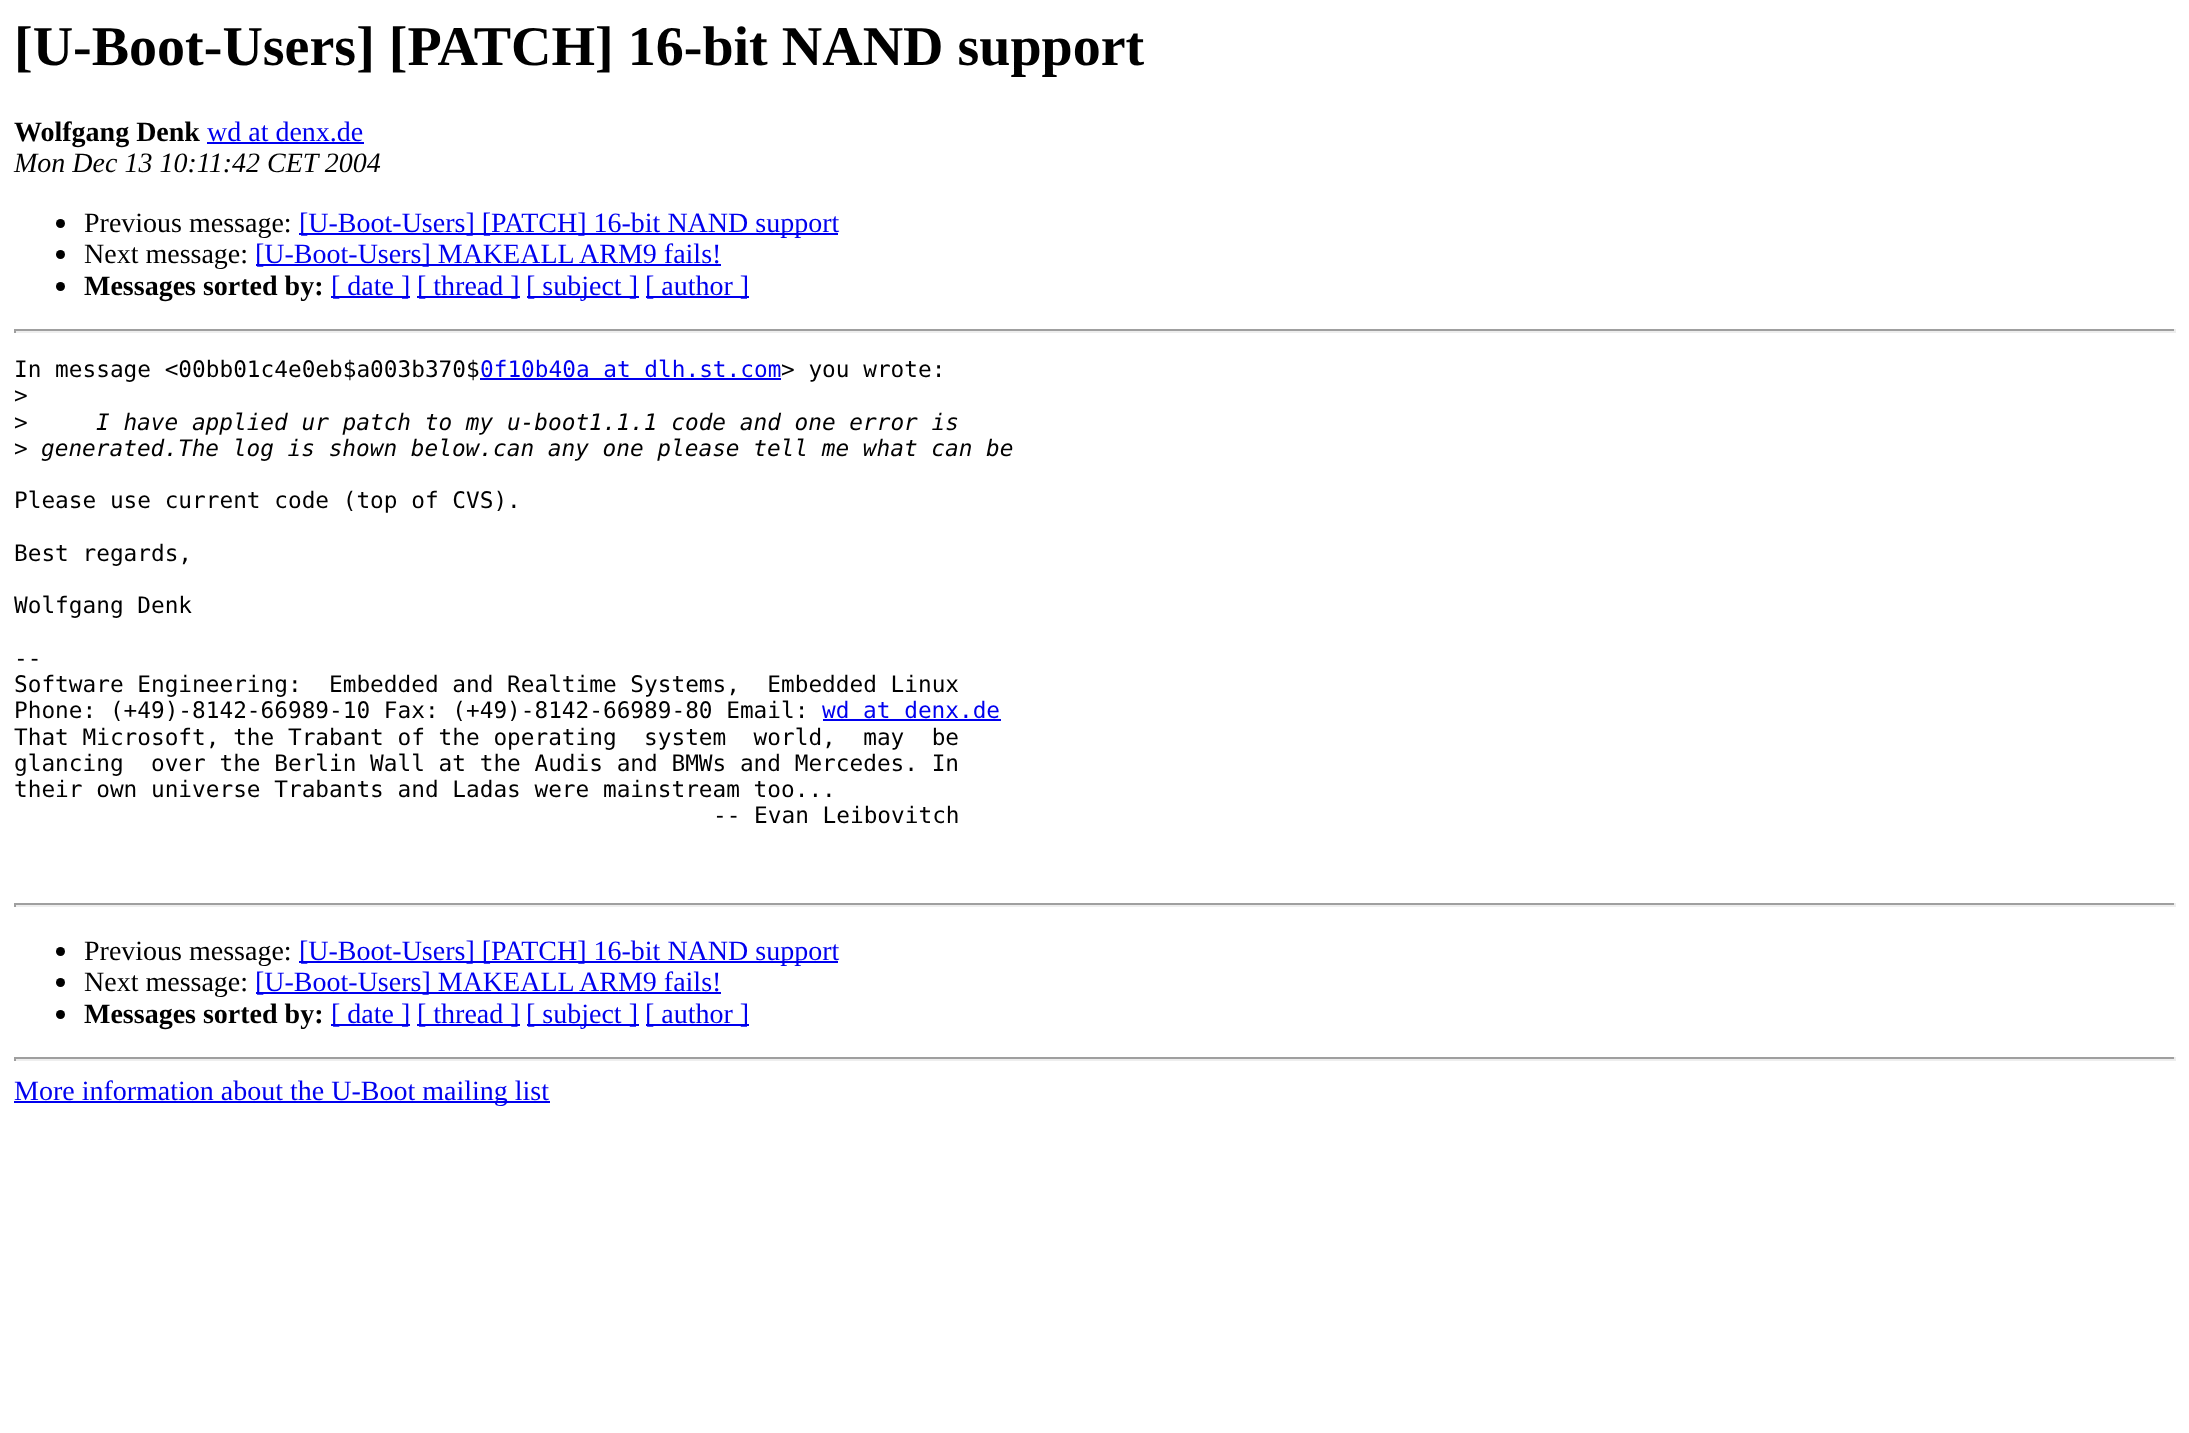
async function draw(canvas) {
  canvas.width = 2189;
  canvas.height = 1433;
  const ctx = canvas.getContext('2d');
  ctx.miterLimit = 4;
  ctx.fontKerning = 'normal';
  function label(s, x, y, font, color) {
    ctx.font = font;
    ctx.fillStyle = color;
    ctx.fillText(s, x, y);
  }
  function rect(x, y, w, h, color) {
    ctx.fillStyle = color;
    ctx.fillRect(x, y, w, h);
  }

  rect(0, 0, 2189, 1433, '#fff');
  label('[U-Boot-Users] [PATCH] 16-bit NAND support', 14, 65, 'bold 56px Liberation Serif', '#000');
  label('Wolfgang Denk', 14, 141, 'bold 28px Liberation Serif', '#000');
  label('wd at denx.de', 207, 141, '28px Liberation Serif', '#00e');
  rect(207, 142, 157, 2, '#00e');
  label('Mon Dec 13 10:11:42 CET 2004', 14, 172, 'italic 28px Liberation Serif', '#000');
  ctx.beginPath();
  ctx.arc(60.5, 223.5, 4.5, 0, 2 * Math.PI);
  ctx.fill();
  label('Previous message:', 84, 232, '28px Liberation Serif', '#000');
  rect(299, 233, 539, 2, '#00e');
  label('[U-Boot-Users] [PATCH] 16-bit NAND support', 299, 232, '28px Liberation Serif', '#00e');
  ctx.fillStyle = '#000';
  ctx.beginPath();
  ctx.arc(60.5, 254.5, 4.5, 0, 2 * Math.PI);
  ctx.fill();
  label('Next message:', 84, 263, '28px Liberation Serif', '#000');
  rect(256, 264, 465, 2, '#00e');
  label('[U-Boot-Users] MAKEALL ARM9 fails!', 255, 263, '28px Liberation Serif', '#00e');
  ctx.fillStyle = '#000';
  ctx.beginPath();
  ctx.arc(60.5, 286.5, 4.5, 0, 2 * Math.PI);
  ctx.fill();
  label('Messages sorted by:', 84, 295, 'bold 28px Liberation Serif', '#000');
  rect(331, 296, 79, 2, '#00e');
  label('[ date ]', 331, 295, '28px Liberation Serif', '#00e');
  rect(417, 296, 103, 2, '#00e');
  label('[ thread ]', 417, 295, '28px Liberation Serif', '#00e');
  rect(527, 296, 112, 2, '#00e');
  label('[ subject ]', 526, 295, '28px Liberation Serif', '#00e');
  rect(646, 296, 103, 2, '#00e');
  label('[ author ]', 645, 295, '28px Liberation Serif', '#00e');
  rect(14, 329, 2161, 2, '#9f9f9f');
  rect(2174, 329, 2, 4, '#eee');
  rect(14, 331, 2161, 2, '#eee');
  rect(14, 329, 2, 4, '#9f9f9f');
  label('In message <00bb01c4e0eb$a003b370$', 14, 377, '22.75px DejaVu Sans Mono', '#000');
  label('0f10b40a at dlh.st.com', 480, 377, '22.75px DejaVu Sans Mono', '#00e');
  rect(480, 378, 301, 2, '#00e');
  label('> you wrote:', 781, 377, '22.75px DejaVu Sans Mono', '#000');
  label('>', 14, 403, '22.75px DejaVu Sans Mono', '#000');
  label('>', 14, 430, '22.75px DejaVu Sans Mono', '#000');
  label('I have applied ur patch to my u-boot1.1.1 code and one error is', 96, 430, 'italic 22.75px DejaVu Sans Mono', '#000');
  label('>', 14, 456, '22.75px DejaVu Sans Mono', '#000');
  label('generated.The log is shown below.can any one please tell me what can be', 41, 456, 'italic 22.75px DejaVu Sans Mono', '#000');
  label('Please use current code (top of CVS).', 14, 508, '22.75px DejaVu Sans Mono', '#000');
  label('Best regards,', 14, 561, '22.75px DejaVu Sans Mono', '#000');
  label('Wolfgang Denk', 14, 613, '22.75px DejaVu Sans Mono', '#000');
  label('--', 14, 666, '22.75px DejaVu Sans Mono', '#000');
  label('Software Engineering:  Embedded and Realtime Systems,  Embedded Linux', 14, 692, '22.75px DejaVu Sans Mono', '#000');
  label('Phone: (+49)-8142-66989-10 Fax: (+49)-8142-66989-80 Email:', 14, 718, '22.75px DejaVu Sans Mono', '#000');
  label('wd at denx.de', 822, 718, '22.75px DejaVu Sans Mono', '#00e');
  rect(823, 719, 178, 2, '#00e');
  label('That Microsoft, the Trabant of the operating  system  world,  may  be', 14, 745, '22.75px DejaVu Sans Mono', '#000');
  label('glancing  over the Berlin Wall at the Audis and BMWs and Mercedes. In', 14, 771, '22.75px DejaVu Sans Mono', '#000');
  label('their own universe Trabants and Ladas were mainstream too...', 14, 797, '22.75px DejaVu Sans Mono', '#000');
  label('-- Evan Leibovitch', 713, 823, '22.75px DejaVu Sans Mono', '#000');
  rect(14, 903, 2161, 2, '#9f9f9f');
  rect(2174, 903, 2, 4, '#eee');
  rect(14, 905, 2161, 2, '#eee');
  rect(14, 903, 2, 4, '#9f9f9f');
  ctx.fillStyle = '#000';
  ctx.beginPath();
  ctx.arc(60.5, 951.5, 4.5, 0, 2 * Math.PI);
  ctx.fill();
  label('Previous message:', 84, 960, '28px Liberation Serif', '#000');
  rect(299, 961, 539, 2, '#00e');
  label('[U-Boot-Users] [PATCH] 16-bit NAND support', 299, 960, '28px Liberation Serif', '#00e');
  ctx.fillStyle = '#000';
  ctx.beginPath();
  ctx.arc(60.5, 982.5, 4.5, 0, 2 * Math.PI);
  ctx.fill();
  label('Next message:', 84, 991, '28px Liberation Serif', '#000');
  rect(256, 992, 465, 2, '#00e');
  label('[U-Boot-Users] MAKEALL ARM9 fails!', 255, 991, '28px Liberation Serif', '#00e');
  ctx.fillStyle = '#000';
  ctx.beginPath();
  ctx.arc(60.5, 1014.5, 4.5, 0, 2 * Math.PI);
  ctx.fill();
  label('Messages sorted by:', 84, 1023, 'bold 28px Liberation Serif', '#000');
  rect(331, 1024, 79, 2, '#00e');
  label('[ date ]', 331, 1023, '28px Liberation Serif', '#00e');
  rect(417, 1024, 103, 2, '#00e');
  label('[ thread ]', 417, 1023, '28px Liberation Serif', '#00e');
  rect(527, 1024, 112, 2, '#00e');
  label('[ subject ]', 526, 1023, '28px Liberation Serif', '#00e');
  rect(646, 1024, 103, 2, '#00e');
  label('[ author ]', 645, 1023, '28px Liberation Serif', '#00e');
  rect(14, 1057, 2161, 2, '#9f9f9f');
  rect(2174, 1057, 2, 4, '#eee');
  rect(14, 1059, 2161, 2, '#eee');
  rect(14, 1057, 2, 4, '#9f9f9f');
  rect(14, 1101, 536, 2, '#00e');
  label('More information about the U-Boot mailing list', 14, 1100, '28px Liberation Serif', '#00e');
}

draw(document.querySelector('canvas'));
